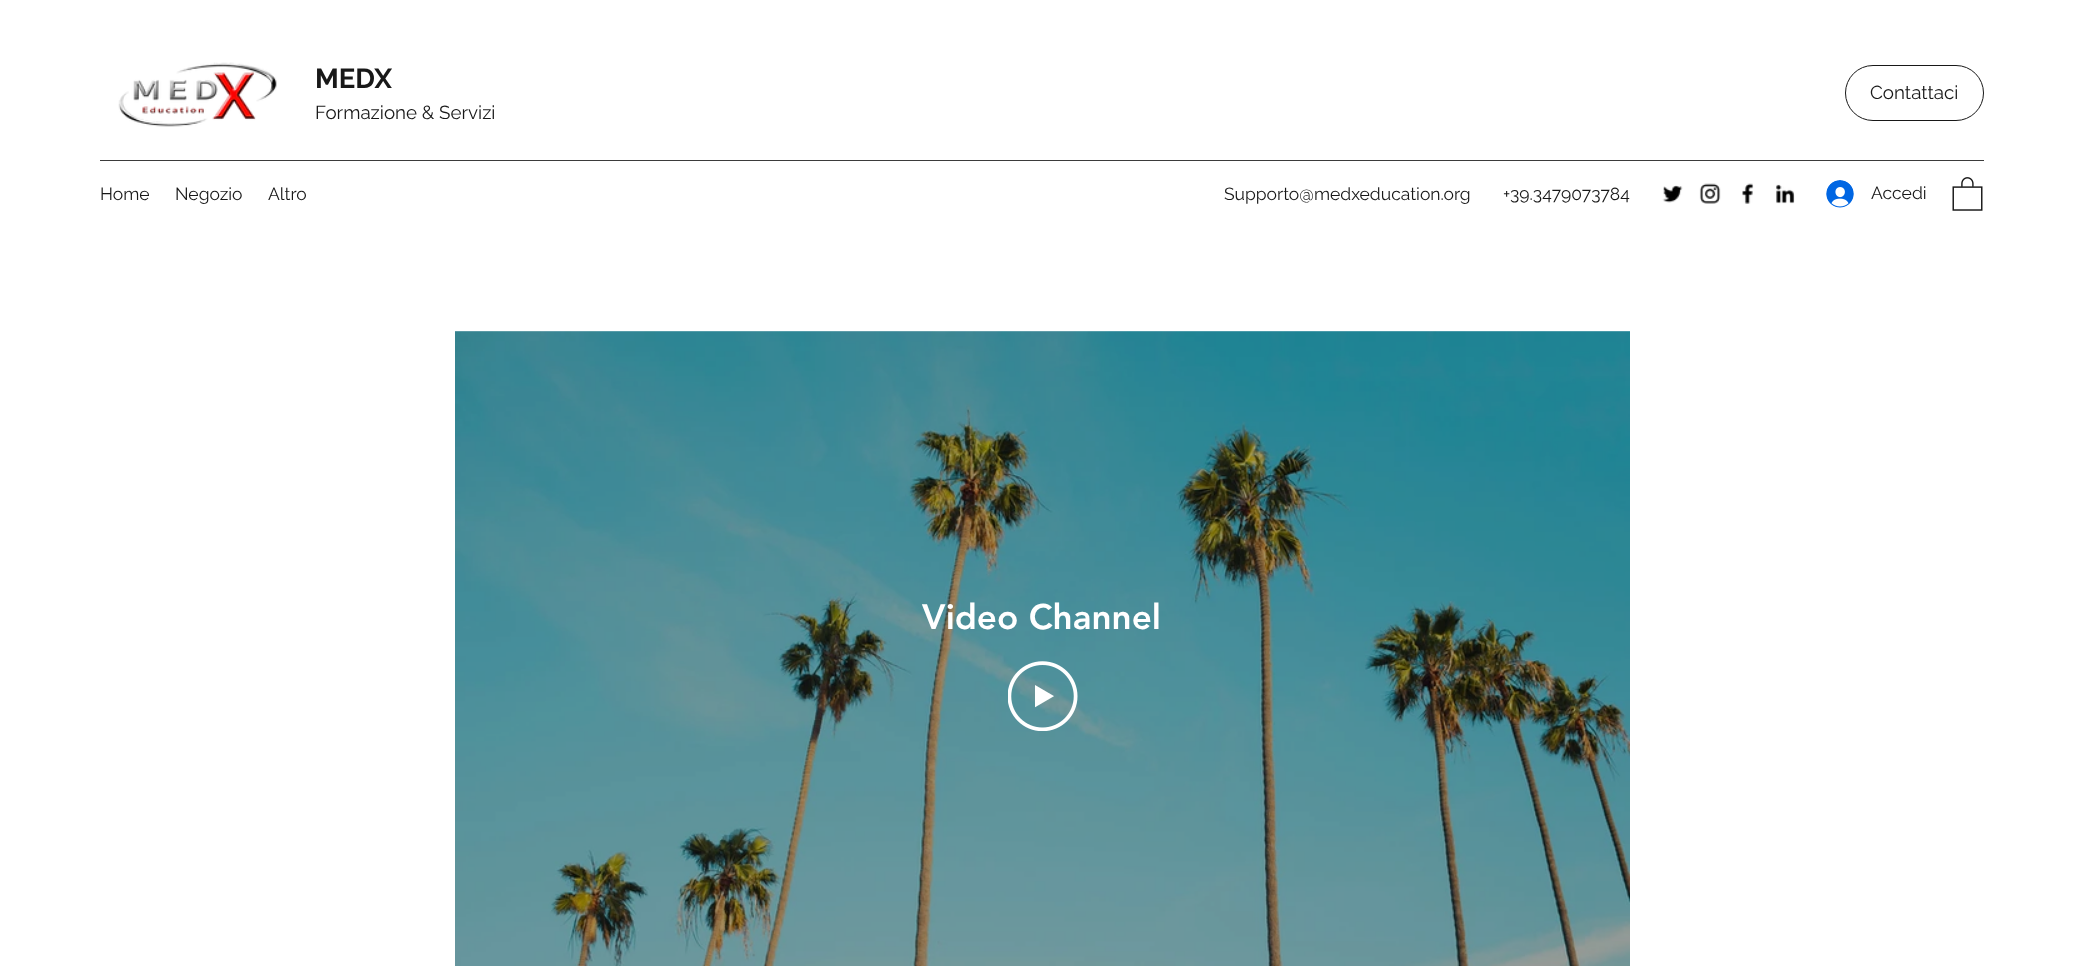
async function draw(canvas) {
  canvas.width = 2083;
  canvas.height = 966;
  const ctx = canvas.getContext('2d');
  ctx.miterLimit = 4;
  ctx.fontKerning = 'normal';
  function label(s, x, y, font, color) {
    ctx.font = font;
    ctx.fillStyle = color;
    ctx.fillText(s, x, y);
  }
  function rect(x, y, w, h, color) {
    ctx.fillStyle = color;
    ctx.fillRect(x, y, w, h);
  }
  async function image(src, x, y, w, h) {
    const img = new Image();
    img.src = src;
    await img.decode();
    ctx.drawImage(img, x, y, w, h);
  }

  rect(0, 0, 2083, 966, '#fff');
  await image('assets/img1.png', 118, 62, 159, 65);
  label('MEDX', 315, 88, 'bold 27.5px Raleway', '#181818');
  label('Formazione & Servizi', 315, 119, '18.75px Raleway', '#181818');
  ctx.beginPath();
  ctx.roundRect(1845.5, 65.5, 138, 55, 27.5);
  ctx.strokeStyle = '#181818';
  ctx.stroke();
  label('Contattaci', 1870, 99, '18.75px Raleway', '#181818');
  rect(100, 160, 1884, 1, '#3b3b3b');
  label('Home', 100, 200, '17.5px Raleway', '#181818');
  label('Negozio', 175, 200, '17.5px Raleway', '#181818');
  label('Altro', 268, 200, '17.5px Raleway', '#181818');
  label('Supporto@medxeducation.org', 1224, 200, '17.5px Raleway', '#181818');
  label('+39.3479073784', 1503, 200, '17.5px Raleway', '#181818');
  await image('assets/img2.png', 1662, 185, 21, 18);
  await image('assets/img3.png', 1699, 183, 22, 21);
  await image('assets/img4.png', 1742, 183, 12, 21);
  await image('assets/img5.png', 1776, 184, 19, 20);
  await image('assets/img6.png', 1826, 180, 28, 28);
  label('Accedi', 1871, 199, '17.5px Raleway', '#181818');
  await image('assets/img7.png', 1952, 177, 31, 34);
  await image('assets/img8.png', 455, 331, 1175, 1);
  await image('assets/img9.png', 455, 331, 1175, 635);
  label('Video Channel', 922, 629, '900 35px "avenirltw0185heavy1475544"', '#fff');
  await image('assets/img10.png', 1008, 661, 70, 70);
}

draw(document.querySelector('canvas'));
